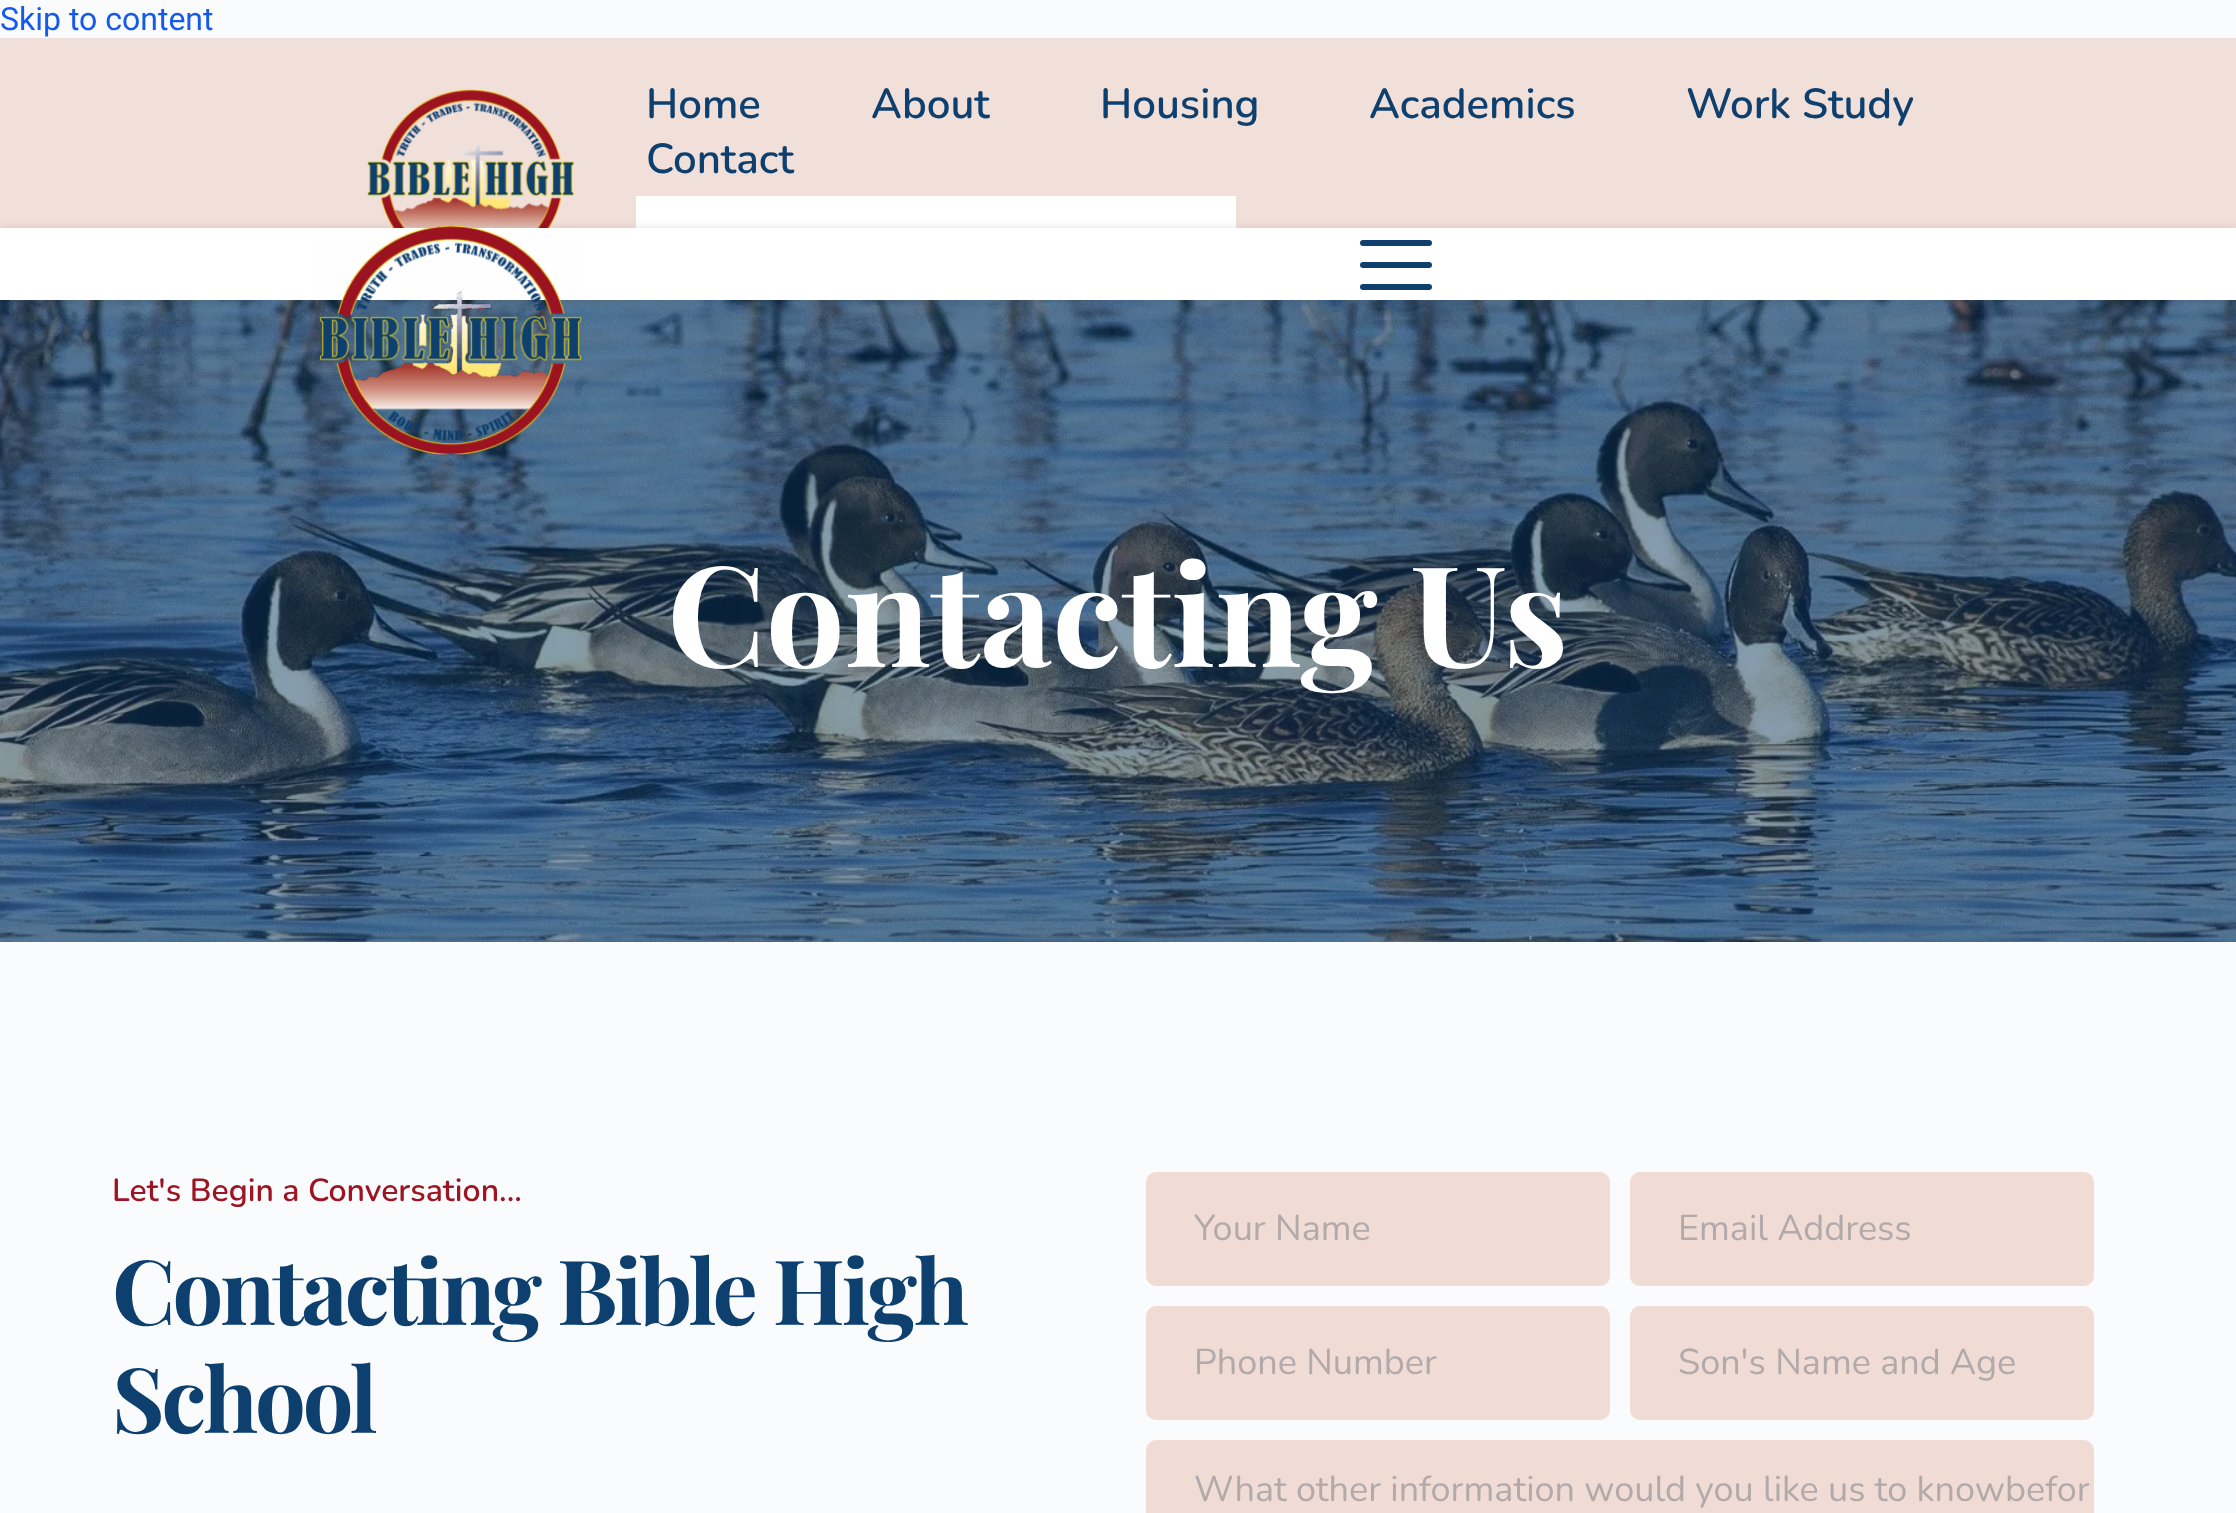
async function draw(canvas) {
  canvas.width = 2236;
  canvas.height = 1513;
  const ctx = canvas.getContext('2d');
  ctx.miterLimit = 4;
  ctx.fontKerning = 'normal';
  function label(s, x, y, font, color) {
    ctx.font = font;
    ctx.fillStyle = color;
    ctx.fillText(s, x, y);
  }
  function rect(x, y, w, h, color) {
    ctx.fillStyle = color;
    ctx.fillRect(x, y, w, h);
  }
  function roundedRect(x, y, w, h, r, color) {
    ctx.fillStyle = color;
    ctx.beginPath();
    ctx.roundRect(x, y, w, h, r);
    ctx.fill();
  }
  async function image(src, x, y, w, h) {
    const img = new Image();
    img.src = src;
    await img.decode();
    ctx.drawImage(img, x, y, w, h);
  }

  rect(0, 0, 2236, 1513, '#fafbfc');
  label('Skip to content', 0, 30, '32px Roboto', '#1559ed');
  rect(0, 38, 2236, 190, '#f1dfd9');
  await image('assets/img1.png', 367, 89, 208, 139);
  label('Home', 646, 118, '600 42px Nunito', '#0d406f');
  label('About', 871, 118, '600 42px Nunito', '#0d406f');
  label('Housing', 1100, 118, '600 42px Nunito', '#0d406f');
  label('Academics', 1369, 118, '600 42px Nunito', '#0d406f');
  label('Work Study', 1686, 118, '600 42px Nunito', '#0d406f');
  label('Contact', 646, 173, '600 42px Nunito', '#0d406f');
  rect(636, 196, 600, 32, '#fff');
  await image('assets/img3.png', 0, 300, 2236, 642);
  ctx.fillStyle = '#0000001a';
  ctx.filter = 'blur(5px)';
  ctx.beginPath();
  ctx.rect(0, 228, 2236, 72);
  ctx.fill();
  ctx.filter = 'none';
  rect(0, 228, 2236, 72, '#fff');
  await image('assets/img2.png', 319, 225, 263, 230);
  roundedRect(1360, 240, 72, 6, 3, '#0d406f');
  roundedRect(1360, 262, 72, 6, 3, '#0d406f');
  roundedRect(1360, 284, 72, 6, 3, '#0d406f');
  label('Contacting Us', 667, 667, 'bold 140px Playfair Display', '#fff');
  label('Let\'s Begin a Conversation...', 112, 1201, '600 32px Nunito', '#9d1523');
  ctx.letterSpacing = '-3px';
  label('Contacting Bible High', 112, 1325, 'bold 90px Playfair Display', '#0d406f');
  label('School', 112, 1433, 'bold 90px Playfair Display', '#0d406f');
  roundedRect(1146, 1172, 464, 114, 10, '#f0dcd5');
  ctx.letterSpacing = '0px';
  label('Your Name', 1194, 1240, '36px Nunito', '#b2aaaa');
  roundedRect(1630, 1172, 464, 114, 10, '#f0dcd5');
  label('Email Address', 1678, 1240, '36px Nunito', '#b2aaaa');
  roundedRect(1146, 1306, 464, 114, 10, '#f0dcd5');
  label('Phone Number', 1194, 1374, '36px Nunito', '#b2aaaa');
  roundedRect(1630, 1306, 464, 114, 10, '#f0dcd5');
  label('Son\'s Name and Age', 1678, 1374, '36px Nunito', '#b2aaaa');
  roundedRect(1146, 1440, 948, 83, 10, '#f0dcd5');
  label('What other information would you like us to knowbefor', 1194, 1501, '36px Nunito', '#b2aaaa');
}

draw(document.querySelector('canvas'));
